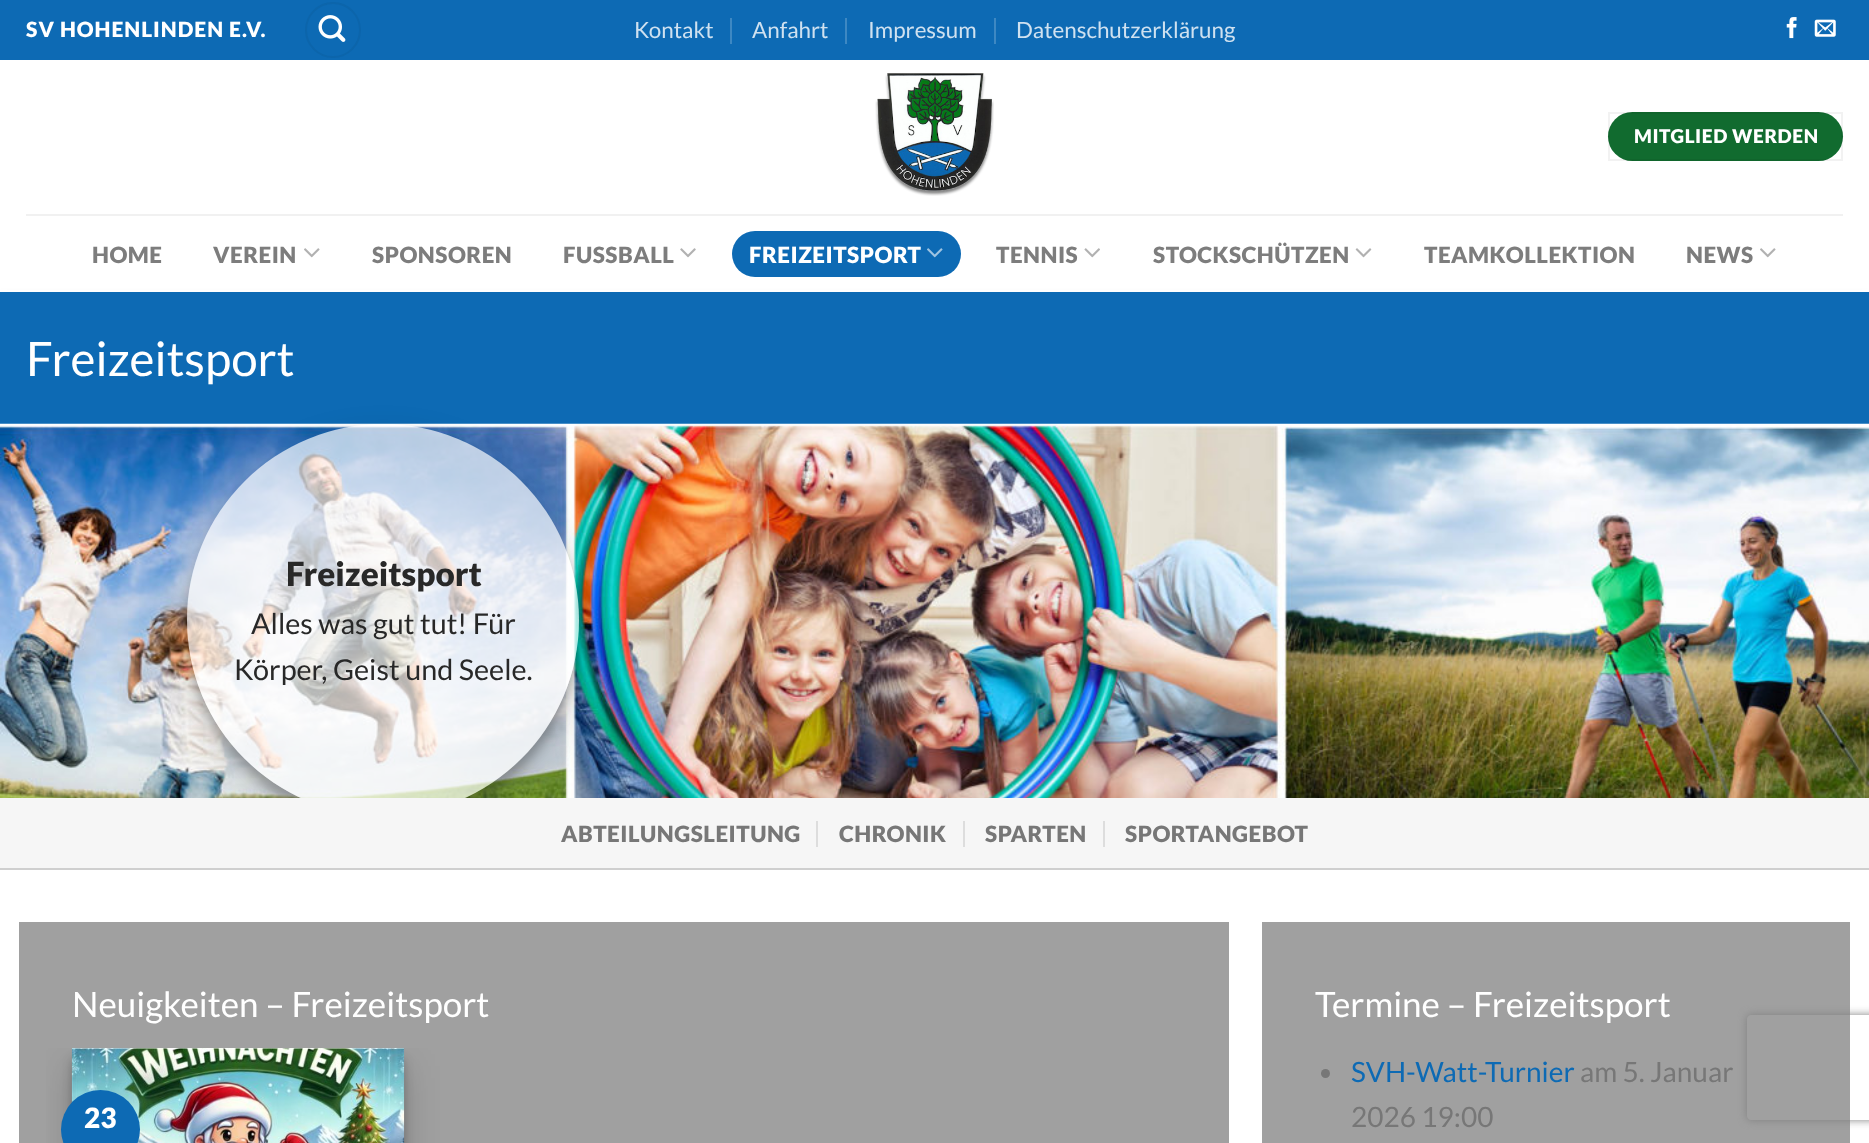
async function draw(canvas) {
  canvas.width = 1869;
  canvas.height = 1143;
  const ctx = canvas.getContext('2d');
  ctx.miterLimit = 4;
  ctx.fontKerning = 'normal';
  function label(s, x, y, font, color) {
    ctx.font = font;
    ctx.fillStyle = color;
    ctx.fillText(s, x, y);
  }
  function rect(x, y, w, h, color) {
    ctx.fillStyle = color;
    ctx.fillRect(x, y, w, h);
  }
  function roundedRect(x, y, w, h, r, color) {
    ctx.fillStyle = color;
    ctx.beginPath();
    ctx.roundRect(x, y, w, h, r);
    ctx.fill();
  }
  async function image(src, x, y, w, h) {
    const img = new Image();
    img.src = src;
    await img.decode();
    ctx.drawImage(img, x, y, w, h);
  }
  let path;

  rect(0, 0, 1869, 1143, '#fff');
  rect(0, 0, 1869, 60, '#0d6ab4');
  ctx.letterSpacing = '1px';
  label('SV HOHENLINDEN E.V.', 26, 37, '900 21px Lato', '#fff');
  ctx.beginPath();
  ctx.arc(333, 30, 27, 0, 2 * Math.PI);
  ctx.strokeStyle = '#0c65ab';
  ctx.lineWidth = 2;
  ctx.stroke();
  await image('assets/img1.png', 318, 15, 28, 27);
  ctx.letterSpacing = '0px';
  label('Kontakt', 634, 38, '22.4px Lato', '#cfe1f0');
  rect(730, 18, 2, 26, '#3d88c3');
  label('Anfahrt', 752, 38, '22.4px Lato', '#cfe1f0');
  rect(845, 18, 2, 26, '#3d88c3');
  label('Impressum', 868, 38, '22.4px Lato', '#cfe1f0');
  rect(994, 18, 2, 26, '#3d88c3');
  label('Datenschutzerklärung', 1016, 38, '22.4px Lato', '#cfe1f0');
  await image('assets/img2.png', 1786, 17, 11, 22);
  await image('assets/img3.png', 1814, 19, 22, 18);
  await image('assets/img4.png', 875, 73, 119, 123);
  roundedRect(1608, 112, 235, 49, 24.5, '#116b2f');
  ctx.strokeStyle = '#0000000d';
  ctx.strokeRect(1609, 113, 233, 47);
  ctx.letterSpacing = '0.6px';
  label('MITGLIED WERDEN', 1634, 143, '900 19px Lato', '#fff');
  rect(26, 214, 1817, 2, '#f1f1f1');
  ctx.letterSpacing = '0.5px';
  label('HOME', 92, 263, '900 22.4px Lato', '#7d7d7d');
  label('VEREIN', 213, 263, '900 22.4px Lato', '#7d7d7d');
  await image('assets/img5.png', 304, 248, 16, 10);
  label('SPONSOREN', 372, 263, '900 22.4px Lato', '#7d7d7d');
  label('FUSSBALL', 563, 263, '900 22.4px Lato', '#7d7d7d');
  await image('assets/img6.png', 680, 248, 16, 10);
  roundedRect(732, 231, 229, 46, 23, '#0d6ab4');
  label('FREIZEITSPORT', 749, 263, '900 22.4px Lato', '#fff');
  await image('assets/img7.png', 927, 248, 16, 10);
  label('TENNIS', 996, 263, '900 22.4px Lato', '#7d7d7d');
  await image('assets/img8.png', 1084, 248, 16, 10);
  label('STOCKSCHÜTZEN', 1153, 263, '900 22.4px Lato', '#7d7d7d');
  await image('assets/img9.png', 1355, 248, 17, 10);
  label('TEAMKOLLEKTION', 1424, 263, '900 22.4px Lato', '#7d7d7d');
  label('NEWS', 1686, 263, '900 22.4px Lato', '#7d7d7d');
  await image('assets/img5.png', 1760, 248, 16, 10);
  ctx.fillStyle = '#0000003b';
  ctx.filter = 'blur(5px)';
  ctx.beginPath();
  ctx.rect(0, 298, 1869, 131);
  ctx.fill();
  ctx.filter = 'none';
  rect(0, 290, 1869, 2, '#ffffffe6');
  rect(0, 292, 1869, 132, '#0d6ab4');
  ctx.letterSpacing = '0px';
  label('Freizeitsport', 26, 376, '47.5px Lato', '#fff');
  await image('assets/img10.png', 0, 423, 1869, 375);
  ctx.save();
  path = new Path2D('M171 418H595V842H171ZM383 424C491 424 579 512 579 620C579 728 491 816 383 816C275 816 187 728 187 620C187 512 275 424 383 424Z');
  ctx.clip(path, 'evenodd');
  ctx.fillStyle = '#00000038';
  ctx.filter = 'blur(5px)';
  ctx.beginPath();
  ctx.roundRect(187, 434, 392, 392, 196);
  ctx.fill();
  ctx.filter = 'none';
  ctx.restore();
  ctx.save();
  path = new Path2D('M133 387H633V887H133ZM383 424C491 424 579 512 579 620C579 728 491 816 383 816C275 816 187 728 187 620C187 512 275 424 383 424Z');
  ctx.clip(path, 'evenodd');
  ctx.fillStyle = '#00000030';
  ctx.filter = 'blur(17.5px)';
  ctx.beginPath();
  ctx.roundRect(187, 441, 392, 392, 196);
  ctx.fill();
  ctx.filter = 'none';
  ctx.restore();
  ctx.fillStyle = '#ffffffad';
  ctx.beginPath();
  ctx.arc(383, 620, 196, 0, 2 * Math.PI);
  ctx.fill();
  label('Freizeitsport', 286, 586, '900 33.25px Lato', '#282828');
  label('Alles was gut tut! Für', 251, 634, '28.75px Lato', '#282828');
  label('Körper, Geist und Seele.', 234, 680, '28.75px Lato', '#282828');
  rect(0, 798, 1869, 70, '#f6f6f6');
  ctx.letterSpacing = '0.5px';
  label('ABTEILUNGSLEITUNG', 561, 842, '900 22.4px Lato', '#777');
  rect(816, 821, 2, 26, '#ddd');
  label('CHRONIK', 839, 842, '900 22.4px Lato', '#777');
  rect(963, 821, 2, 26, '#ddd');
  label('SPARTEN', 985, 842, '900 22.4px Lato', '#777');
  rect(1103, 821, 2, 26, '#ddd');
  label('SPORTANGEBOT', 1125, 842, '900 22.4px Lato', '#777');
  rect(0, 868, 1869, 2, '#cfcfcf');
  rect(19, 922, 1210, 221, '#a0a0a0');
  ctx.letterSpacing = '0px';
  label('Neuigkeiten – Freizeitsport', 72, 1017, '35px Lato', '#fff');
  ctx.fillStyle = '#00000038';
  ctx.filter = 'blur(5px)';
  ctx.beginPath();
  ctx.rect(72, 1059, 332, 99);
  ctx.fill();
  ctx.filter = 'none';
  ctx.save();
  ctx.beginPath();
  ctx.rect(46, 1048, 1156, 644);
  ctx.clip();
  ctx.fillStyle = '#00000030';
  ctx.filter = 'blur(17.5px)';
  ctx.beginPath();
  ctx.rect(72, 1066, 332, 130);
  ctx.fill();
  ctx.filter = 'none';
  ctx.restore();
  rect(72, 1048, 332, 1, '#fff');
  await image('assets/img11.png', 71, 1048, 334, 95);
  ctx.fillStyle = '#0d6ab4';
  ctx.beginPath();
  ctx.arc(100.5, 1129.5, 39.5, 0, 2 * Math.PI);
  ctx.fill();
  label('23', 84, 1128, '900 28px Lato', '#fff');
  rect(1262, 922, 588, 221, '#a0a0a0');
  label('Termine – Freizeitsport', 1315, 1017, '35px Lato', '#fff');
  ctx.fillStyle = '#777';
  ctx.beginPath();
  ctx.arc(1325.5, 1073.5, 4.5, 0, 2 * Math.PI);
  ctx.fill();
  label('SVH-Watt-Turnier', 1351, 1082, '28px Lato', '#0d6ab4');
  label('am 5. Januar', 1580, 1082, '28px Lato', '#777');
  label('2026 19:00', 1351, 1127, '28px Lato', '#777');
  ctx.save();
  path = new Path2D('M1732 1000H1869V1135H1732ZM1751 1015H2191C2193 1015 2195 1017 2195 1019V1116C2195 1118 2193 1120 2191 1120H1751C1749 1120 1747 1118 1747 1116V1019C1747 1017 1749 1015 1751 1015Z');
  ctx.clip(path, 'evenodd');
  ctx.fillStyle = '#808080';
  ctx.filter = 'blur(4.5px)';
  ctx.beginPath();
  ctx.roundRect(1747, 1015, 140, 105, 4);
  ctx.fill();
  ctx.filter = 'none';
  ctx.restore();
}

draw(document.querySelector('canvas'));
